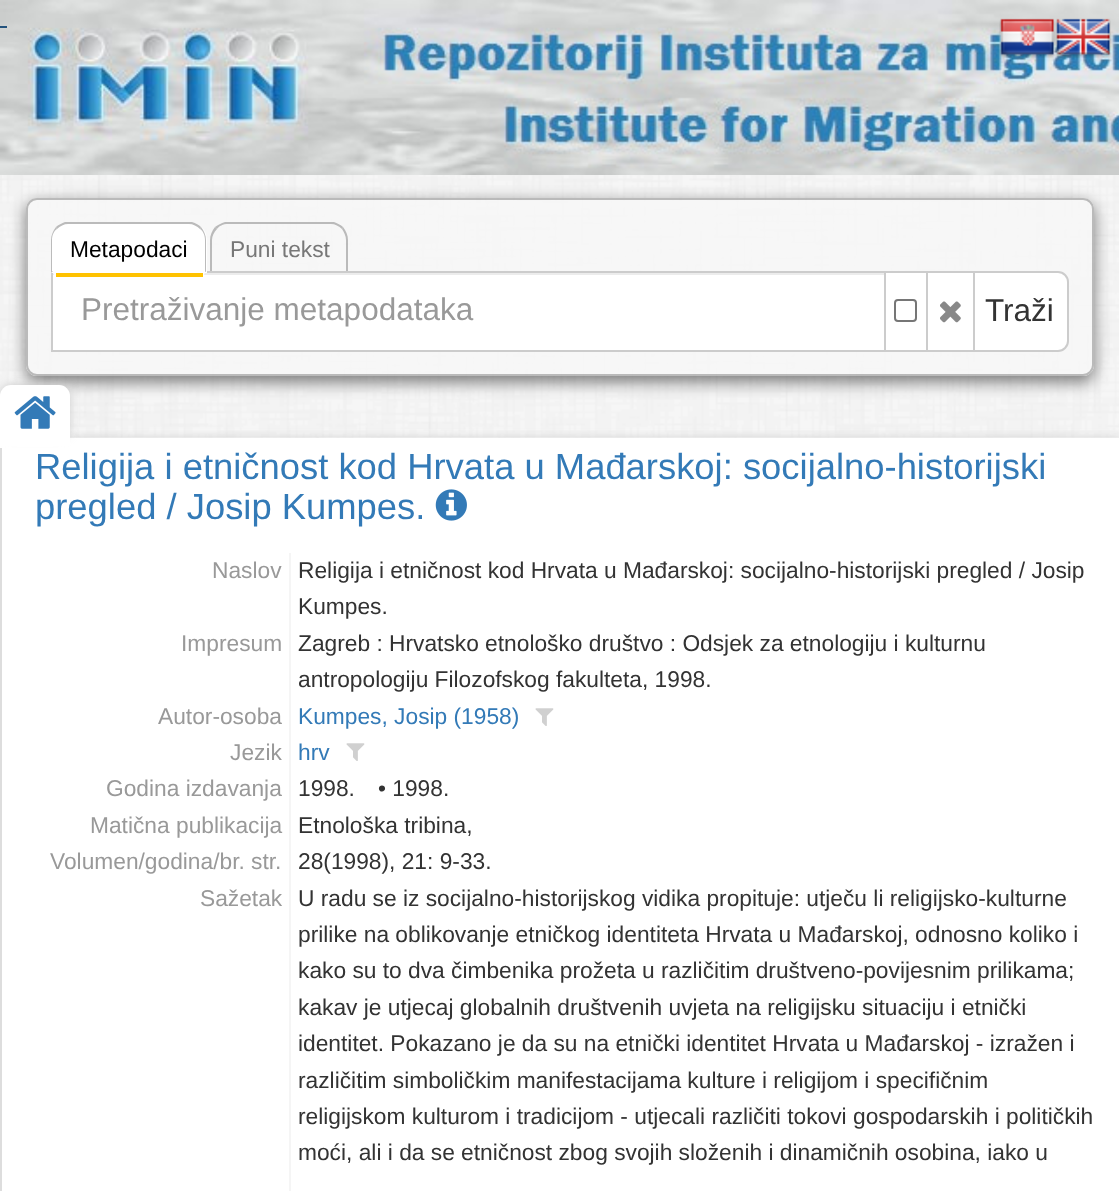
async function draw(canvas) {
  canvas.width = 1119;
  canvas.height = 1191;
  const ctx = canvas.getContext('2d');
  ctx.miterLimit = 4;
  ctx.fontKerning = 'normal';
  function label(s, x, y, font, color) {
    ctx.font = font;
    ctx.fillStyle = color;
    ctx.fillText(s, x, y);
  }
  function rect(x, y, w, h, color) {
    ctx.fillStyle = color;
    ctx.fillRect(x, y, w, h);
  }
  function roundedRect(x, y, w, h, r, color) {
    ctx.fillStyle = color;
    ctx.beginPath();
    ctx.roundRect(x, y, w, h, r);
    ctx.fill();
  }
  async function image(src, x, y, w, h) {
    const img = new Image();
    img.src = src;
    await img.decode();
    ctx.drawImage(img, x, y, w, h);
  }
  let path;

  rect(0, 0, 1119, 1191, '#fff');
  await image('assets/img1.png', 0, 175, 1119, 263);
  await image('assets/img2.png', 0, 0, 1119, 175);
  rect(0, 26, 7, 2, '#23527c');
  await image('assets/img3.png', 999, 18, 56, 40);
  await image('assets/img4.png', 1055, 18, 56, 40);
  ctx.save();
  path = new Path2D('M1 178H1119V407H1ZM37 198H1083C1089 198 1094 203 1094 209V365C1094 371 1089 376 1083 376H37C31 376 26 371 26 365V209C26 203 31 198 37 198Z');
  ctx.clip(path, 'evenodd');
  ctx.fillStyle = '#00000080';
  ctx.filter = 'blur(8px)';
  ctx.beginPath();
  ctx.roundRect(26, 203, 1068, 179, 11);
  ctx.fill();
  ctx.filter = 'none';
  ctx.restore();
  roundedRect(26, 198, 1068, 178, 11, '#f8f8f8cc');
  ctx.beginPath();
  ctx.roundRect(27, 199, 1066, 176, 10);
  ctx.strokeStyle = '#aaaaaacc';
  ctx.lineWidth = 2;
  ctx.stroke();
  ctx.fillStyle = '#bababa';
  path = new Path2D('M228 224C223 224 219 226 217 229L215 227C218 225 221 223 225 222H334C337 223 341 225 343 227L342 229C339 226 335 224 331 224Z');
  ctx.fill(path);
  ctx.fillStyle = '#aaaaaacc';
  path = new Path2D('M343 227C346 231 348 235 348 240V273L346 271V240C346 236 344 232 342 229Z');
  ctx.fill(path);
  path = new Path2D('M210 273L212 271V240C212 236 214 232 217 229L215 227C212 231 210 235 210 240Z');
  ctx.fill(path);
  rect(53, 275, 831, 75, '#fff');
  rect(53, 273, 831, 2, '#ececec');
  ctx.strokeStyle = '#ccc';
  ctx.strokeRect(52, 272, 833, 79);
  ctx.fillStyle = '#fff';
  ctx.beginPath();
  ctx.roundRect(51, 222, 156, 51, [18, 18, 0, 0]);
  ctx.fill();
  ctx.fillStyle = '#aaaaaacc';
  path = new Path2D('M68 224C64 224 60 226 57 229L56 227C58 225 62 223 65 222H192C196 223 199 225 201 227L200 229C197 226 193 224 189 224Z');
  ctx.fill(path);
  path = new Path2D('M201 227C204 231 206 235 206 240V272L204 271H205V240C205 235 203 231 200 229Z');
  ctx.fill(path);
  path = new Path2D('M51 273V240C51 235 53 231 56 227L57 229C54 231 52 235 52 240V271H53Z');
  ctx.fill(path);
  label('Metapodaci', 70, 257, '22.75px Liberation Sans', '#000');
  ctx.fillStyle = '#fff';
  ctx.beginPath();
  ctx.roundRect(53, 266, 152, 11, [0, 0, 5.5, 5.5]);
  ctx.fill();
  rect(56, 273, 147, 4, '#ffc200');
  label('Puni tekst', 230, 257, '22.75px Liberation Sans', '#777');
  label('Pretraživanje metapodataka', 81, 320, '31.5px Liberation Sans', '#999');
  ctx.fillStyle = '#fff';
  ctx.beginPath();
  ctx.rect(885, 272, 42, 79);
  ctx.fill();
  ctx.stroke();
  ctx.beginPath();
  ctx.roundRect(895, 300, 21, 21, 3);
  ctx.strokeStyle = '#767676';
  ctx.stroke();
  ctx.beginPath();
  ctx.rect(927, 272, 47, 79);
  ctx.fill();
  ctx.strokeStyle = '#ccc';
  ctx.stroke();
  await image('assets/img5.png', 940, 301, 21, 22);
  ctx.beginPath();
  ctx.roundRect(974, 272, 94, 79, [0, 10, 10, 0]);
  ctx.fill();
  ctx.stroke();
  label('Traži', 985, 321, '31.5px Liberation Sans', '#333');
  ctx.fillStyle = '#ccc';
  ctx.filter = 'blur(4.5px)';
  ctx.beginPath();
  ctx.rect(0, 438, 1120, 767);
  ctx.fill();
  ctx.filter = 'none';
  await image('assets/img6.png', 70, 437, 1049, 1);
  rect(0, 438, 1119, 753, '#fff');
  ctx.fillStyle = '#ccc';
  ctx.filter = 'blur(4.5px)';
  ctx.beginPath();
  ctx.roundRect(0, 385, 70, 53, 11);
  ctx.fill();
  ctx.filter = 'none';
  ctx.fillStyle = '#fff';
  ctx.beginPath();
  ctx.roundRect(0, 385, 70, 61, [11, 11, 0, 0]);
  ctx.fill();
  await image('assets/img7.png', 14, 396, 42, 33);
  rect(0, 448, 2, 743, '#ddd');
  label('Religija i etničnost kod Hrvata u Mađarskoj: socijalno-historijski', 35, 479, '36.4px Liberation Sans', '#337ab7');
  label('pregled / Josip Kumpes.', 35, 519, '36.4px Liberation Sans', '#337ab7');
  await image('assets/img8.png', 435, 489, 32, 32);
  rect(289, 553, 2, 638, '#f5f5f5');
  label('Naslov', 212, 578, '22.75px Liberation Sans', '#999');
  label('Religija i etničnost kod Hrvata u Mađarskoj: socijalno-historijski pregled / Josip', 298, 578, '22.75px Liberation Sans', '#333');
  label('Kumpes.', 298, 614, '22.75px Liberation Sans', '#333');
  label('Impresum', 181, 651, '22.75px Liberation Sans', '#999');
  label('Zagreb : Hrvatsko etnološko društvo : Odsjek za etnologiju i kulturnu', 298, 651, '22.75px Liberation Sans', '#333');
  label('antropologiju Filozofskog fakulteta, 1998.', 298, 687, '22.75px Liberation Sans', '#333');
  label('Autor-osoba', 158, 724, '22.75px Liberation Sans', '#999');
  label('Kumpes, Josip (1958)', 298, 724, '22.75px Liberation Sans', '#337ab7');
  await image('assets/img9.png', 535, 708, 19, 18);
  label('Jezik', 230, 760, '22.75px Liberation Sans', '#999');
  label('hrv', 298, 760, '22.75px Liberation Sans', '#337ab7');
  await image('assets/img9.png', 346, 743, 19, 18);
  label('Godina izdavanja', 106, 796, '22.75px Liberation Sans', '#999');
  label('1998.', 298, 796, '22.75px Liberation Sans', '#333');
  label('• 1998.', 378, 796, '22.75px Liberation Sans', '#333');
  label('Matična publikacija', 90, 833, '22.75px Liberation Sans', '#999');
  label('Etnološka tribina,', 298, 833, '22.75px Liberation Sans', '#333');
  label('Volumen/godina/br. str.', 50, 869, '22.75px Liberation Sans', '#999');
  label('28(1998), 21: 9-33.', 298, 869, '22.75px Liberation Sans', '#333');
  label('Sažetak', 200, 906, '22.75px Liberation Sans', '#999');
  label('U radu se iz socijalno-historijskog vidika propituje: utječu li religijsko-kulturne', 298, 906, '22.75px Liberation Sans', '#333');
  label('prilike na oblikovanje etničkog identiteta Hrvata u Mađarskoj, odnosno koliko i', 298, 942, '22.75px Liberation Sans', '#333');
  label('kako su to dva čimbenika prožeta u različitim društveno-povijesnim prilikama;', 298, 978, '22.75px Liberation Sans', '#333');
  label('kakav je utjecaj globalnih društvenih uvjeta na religijsku situaciju i etnički', 298, 1015, '22.75px Liberation Sans', '#333');
  label('identitet. Pokazano je da su na etnički identitet Hrvata u Mađarskoj - izražen i', 298, 1051, '22.75px Liberation Sans', '#333');
  label('različitim simboličkim manifestacijama kulture i religijom i specifičnim', 298, 1088, '22.75px Liberation Sans', '#333');
  label('religijskom kulturom i tradicijom - utjecali različiti tokovi gospodarskih i političkih', 298, 1124, '22.75px Liberation Sans', '#333');
  label('moći, ali i da se etničnost zbog svojih složenih i dinamičnih osobina, iako u', 298, 1160, '22.75px Liberation Sans', '#333');
}

draw(document.querySelector('canvas'));
